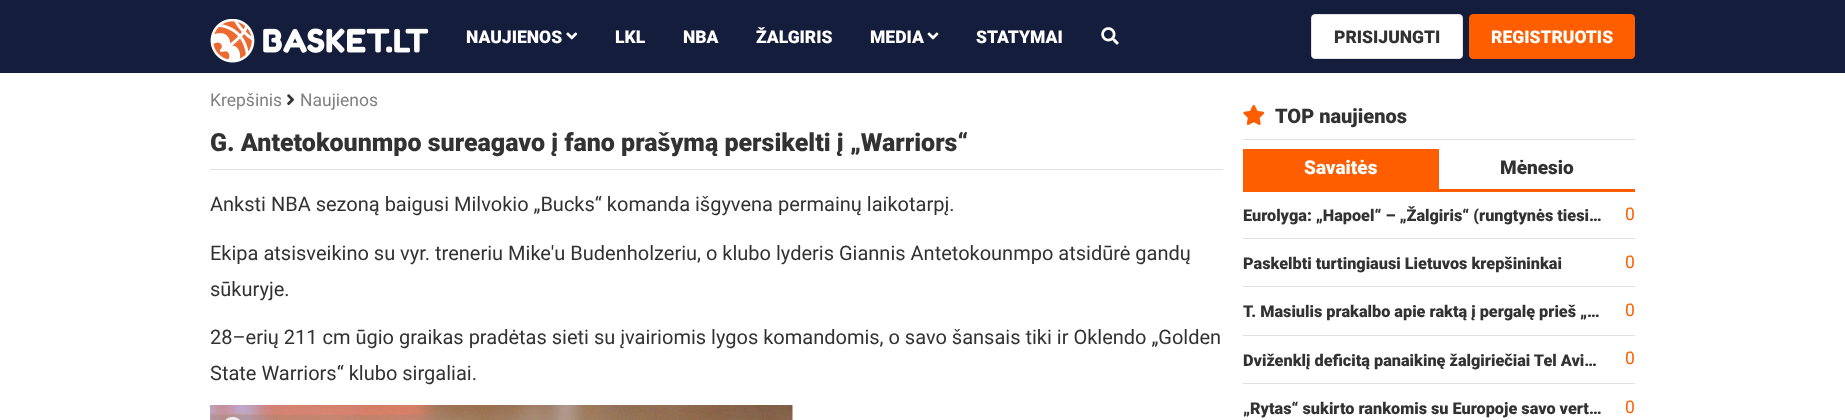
async function draw(canvas) {
  canvas.width = 1845;
  canvas.height = 420;
  const ctx = canvas.getContext('2d');
  ctx.miterLimit = 4;
  ctx.fontKerning = 'normal';
  function label(s, x, y, font, color) {
    ctx.font = font;
    ctx.fillStyle = color;
    ctx.fillText(s, x, y);
  }
  function rect(x, y, w, h, color) {
    ctx.fillStyle = color;
    ctx.fillRect(x, y, w, h);
  }
  async function image(src, x, y, w, h) {
    const img = new Image();
    img.src = src;
    await img.decode();
    ctx.drawImage(img, x, y, w, h);
  }

  rect(0, 0, 1845, 420, '#fff');
  rect(0, 0, 1845, 73, '#141e3c');
  await image('assets/img1.png', 210, 19, 219, 44);
  label('NAUJIENOS', 466, 43, '900 17.5px Roboto', '#fff');
  await image('assets/img2.png', 566, 32, 12, 8);
  label('LKL', 615, 43, '900 17.5px Roboto', '#fff');
  label('NBA', 683, 43, '900 17.5px Roboto', '#fff');
  label('ŽALGIRIS', 756, 43, '900 17.5px Roboto', '#fff');
  label('MEDIA', 870, 43, '900 17.5px Roboto', '#fff');
  await image('assets/img3.png', 927, 32, 12, 8);
  label('STATYMAI', 976, 43, '900 17.5px Roboto', '#fff');
  await image('assets/img4.png', 1101, 27, 18, 18);
  ctx.beginPath();
  ctx.roundRect(1311.5, 14.5, 151, 44, 3.5);
  ctx.fill();
  ctx.strokeStyle = '#e1e1e1';
  ctx.stroke();
  label('PRISIJUNGTI', 1334, 43, '900 17.5px Roboto', '#323232');
  ctx.fillStyle = '#ff5e00';
  ctx.beginPath();
  ctx.roundRect(1469.5, 14.5, 165, 44, 3.5);
  ctx.fill();
  ctx.strokeStyle = '#ff5e00';
  ctx.stroke();
  label('REGISTRUOTIS', 1491, 43, '900 17.5px Roboto', '#fff');
  label('Krepšinis', 210, 106, '17.5px Roboto', '#808080');
  await image('assets/img5.png', 287, 94, 8, 12);
  label('Naujienos', 300, 106, '17.5px Roboto', '#808080');
  rect(210, 169, 1013, 1, '#e1e1e1');
  label('G. Antetokounmpo sureagavo į fano prašymą persikelti į „Warriors“', 210, 151, '900 25px Roboto', '#323232');
  label('Anksti NBA sezoną baigusi Milvokio „Bucks“ komanda išgyvena permainų laikotarpį.', 210, 211, '20px Roboto', '#323232');
  label('Ekipa atsisveikino su vyr. treneriu Mike\'u Budenholzeriu, o klubo lyderis Giannis Antetokounmpo atsidūrė gandų', 210, 260, '20px Roboto', '#323232');
  label('sūkuryje.', 210, 296, '20px Roboto', '#323232');
  label('28–erių 211 cm ūgio graikas pradėtas sieti su įvairiomis lygos komandomis, o savo šansais tiki ir Oklendo „Golden', 210, 344, '20px Roboto', '#323232');
  label('State Warriors“ klubo sirgaliai.', 210, 380, '20px Roboto', '#323232');
  await image('assets/img6.png', 210, 405, 583, 15);
  await image('assets/img7.png', 225, 416, 15, 4);
  rect(1243, 139, 392, 1, '#e1e1e1');
  await image('assets/img8.png', 1243, 105, 22, 20);
  label('TOP naujienos', 1275, 123, '900 20px Roboto', '#323232');
  rect(1243, 189, 392, 3, '#ff5e00');
  rect(1243, 149, 196, 40, '#ff5e00');
  label('Savaitės', 1304, 174, '900 19px Roboto', '#fff');
  label('Mėnesio', 1500, 174, '900 19px Roboto', '#323232');
  rect(1243, 238, 392, 1, '#e1e1e1');
  label('Eurolyga: „Hapoel“ – „Žalgiris“ (rungtynės tiesi…', 1243, 221, '900 16.25px Roboto', '#323232');
  label('0', 1625, 220, '17.5px Roboto', '#ff5e00');
  rect(1243, 286, 392, 1, '#e1e1e1');
  label('Paskelbti turtingiausi Lietuvos krepšininkai', 1243, 269, '900 16.25px Roboto', '#323232');
  label('0', 1625, 268, '17.5px Roboto', '#ff5e00');
  rect(1243, 335, 392, 1, '#e1e1e1');
  ctx.save();
  ctx.beginPath();
  ctx.rect(1243, 299, 361, 26);
  ctx.clip();
  label('T. Masiulis prakalbo apie raktą į pergalę prieš „…', 1243, 317, '900 16.25px Roboto', '#323232');
  ctx.restore();
  label('0', 1625, 316, '17.5px Roboto', '#ff5e00');
  rect(1243, 383, 392, 1, '#e1e1e1');
  label('Dviženklį deficitą panaikinę žalgiriečiai Tel Avi…', 1243, 366, '900 16.25px Roboto', '#323232');
  label('0', 1625, 364, '17.5px Roboto', '#ff5e00');
  label('„Rytas“ sukirto rankomis su Europoje savo vert…', 1243, 414, '900 16.25px Roboto', '#323232');
  label('0', 1625, 413, '17.5px Roboto', '#ff5e00');
}

draw(document.querySelector('canvas'));
